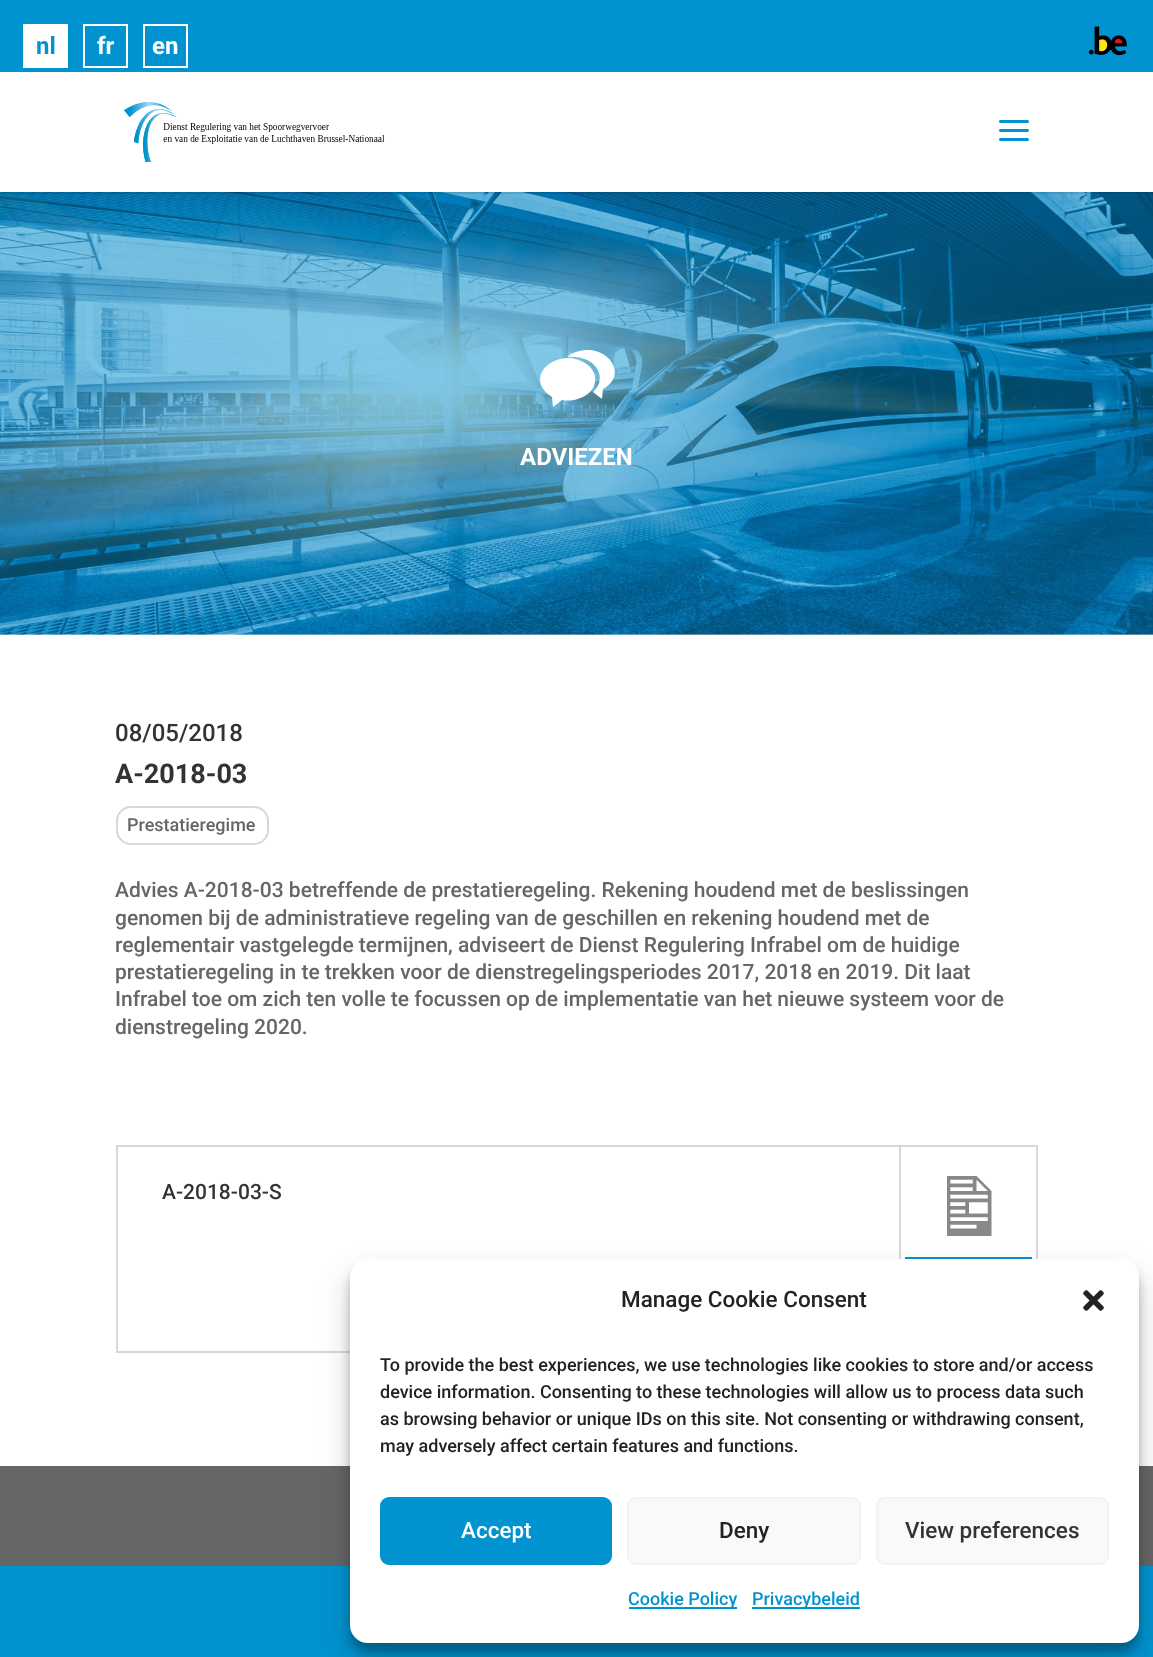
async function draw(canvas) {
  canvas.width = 1153;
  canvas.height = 1657;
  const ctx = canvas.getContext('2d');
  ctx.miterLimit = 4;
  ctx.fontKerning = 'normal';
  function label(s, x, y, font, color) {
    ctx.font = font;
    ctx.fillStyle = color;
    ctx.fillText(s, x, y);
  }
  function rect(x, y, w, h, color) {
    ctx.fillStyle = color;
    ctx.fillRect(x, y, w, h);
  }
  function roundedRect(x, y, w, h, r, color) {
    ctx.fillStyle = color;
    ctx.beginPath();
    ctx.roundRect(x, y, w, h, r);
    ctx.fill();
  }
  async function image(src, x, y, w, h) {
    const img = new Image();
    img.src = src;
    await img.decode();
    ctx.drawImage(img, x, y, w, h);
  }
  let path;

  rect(0, 0, 1153, 1657, '#0093d0');
  rect(23, 24, 45, 44, '#fff');
  label('nl', 36, 54, 'bold 24px Roboto', '#0093d0');
  ctx.strokeStyle = '#fff';
  ctx.lineWidth = 2;
  ctx.strokeRect(84, 25, 43, 42);
  label('fr', 97, 54, 'bold 24px Roboto', '#fff');
  ctx.strokeRect(144, 25, 43, 42);
  label('en', 152, 54, 'bold 24px Roboto', '#fff');
  await image('assets/img1.png', 1088, 26, 39, 30);
  rect(0, 634, 1153, 832, '#fff');
  await image('assets/img4.png', 0, 192, 1153, 443);
  ctx.fillStyle = '#0000001a';
  path = new Path2D('M0 192V194H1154V74V192Z');
  ctx.fill(path);
  rect(0, 72, 1153, 120, '#fff');
  await image('assets/img2.png', 124, 102, 261, 60);
  await image('assets/img3.png', 999, 120, 30, 21);
  path = new Path2D('M588 350C580 350 573 352 567 357C574 356 581 357 587 360C600 366 605 382 593 392L602 399L603 389C627 376 611 350 588 350ZM568 358C554 358 536 369 541 385C543 390 547 394 552 397L553 407L562 400C576 403 598 394 595 376C594 371 590 366 585 363C580 360 574 358 568 358Z');
  ctx.fill(path);
  label('ADVIEZEN', 520, 465, 'bold 24px Roboto', '#fff');
  label('08/05/2018', 115, 741, '500 24px Roboto', '#333');
  label('A-2018-03', 115, 783, 'bold 27px Roboto', '#333');
  ctx.beginPath();
  ctx.roundRect(117, 807, 151, 37, 14);
  ctx.strokeStyle = '#d7d7d7';
  ctx.stroke();
  label('Prestatieregime', 127, 831, '500 18px Roboto', '#666');
  label('Advies A-2018-03 betreffende de prestatieregeling. Rekening houdend met de beslissingen', 115, 897, '500 21px Roboto', '#666');
  label('genomen bij de administratieve regeling van de geschillen en rekening houdend met de', 115, 925, '500 21px Roboto', '#666');
  label('reglementair vastgelegde termijnen, adviseert de Dienst Regulering Infrabel om de huidige', 115, 952, '500 21px Roboto', '#666');
  label('prestatieregeling in te trekken voor de dienstregelingsperiodes 2017, 2018 en 2019. Dit laat', 115, 979, '500 21px Roboto', '#666');
  label('Infrabel toe om zich ten volle te focussen op de implementatie van het nieuwe systeem voor de', 115, 1006, '500 21px Roboto', '#666');
  label('dienstregeling 2020.', 115, 1034, '500 21px Roboto', '#666');
  ctx.strokeRect(117, 1146, 920, 206);
  label('A-2018-03-S', 162, 1199, '500 21px Roboto', '#333');
  rect(899, 1146, 2, 113, '#d7d7d7');
  await image('assets/img5.png', 947, 1176, 45, 60);
  rect(905, 1257, 127, 2, '#0093d0');
  rect(0, 1466, 1153, 100, '#666');
  ctx.fillStyle = '#0000003b';
  ctx.filter = 'blur(4.5px)';
  ctx.beginPath();
  ctx.roundRect(350, 1268, 789, 384, 18);
  ctx.fill();
  ctx.filter = 'none';
  ctx.fillStyle = '#00000030';
  ctx.filter = 'blur(15px)';
  ctx.beginPath();
  ctx.roundRect(350, 1274, 789, 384, 18);
  ctx.fill();
  ctx.filter = 'none';
  roundedRect(350, 1259, 789, 384, 18, '#fff');
  label('Manage Cookie Consent', 621, 1307, '500 22.5px Roboto', '#222');
  await image('assets/img6.png', 1083, 1290, 21, 21);
  label('To provide the best experiences, we use technologies like cookies to store and/or access', 380, 1371, '500 18px Roboto', '#222');
  label('device information. Consenting to these technologies will allow us to process data such', 380, 1398, '500 18px Roboto', '#222');
  label('as browsing behavior or unique IDs on this site. Not consenting or withdrawing consent,', 380, 1425, '500 18px Roboto', '#222');
  label('may adversely affect certain features and functions.', 380, 1452, '500 18px Roboto', '#222');
  ctx.fillStyle = '#0093d0';
  ctx.beginPath();
  ctx.roundRect(381, 1498, 230, 66, 8);
  ctx.fill();
  ctx.strokeStyle = '#0093d0';
  ctx.stroke();
  label('Accept', 461, 1538, '500 22.5px Roboto', '#fff');
  ctx.fillStyle = '#f9f9f9';
  ctx.beginPath();
  ctx.roundRect(628, 1498, 232, 66, 8);
  ctx.fill();
  ctx.strokeStyle = '#f2f2f2';
  ctx.stroke();
  label('Deny', 719, 1538, '500 22.5px Roboto', '#222');
  ctx.fillStyle = '#f9f9f9';
  ctx.beginPath();
  ctx.roundRect(877, 1498, 231, 66, 8);
  ctx.fill();
  ctx.stroke();
  label('View preferences', 905, 1538, '500 22.5px Roboto', '#333');
  rect(629, 1607, 108, 2, '#0093d0');
  label('Cookie Policy', 628, 1605, '500 18px Roboto', '#0093d0');
  rect(752, 1607, 108, 2, '#0093d0');
  label('Privacybeleid', 752, 1605, '500 18px Roboto', '#0093d0');
}

draw(document.querySelector('canvas'));
